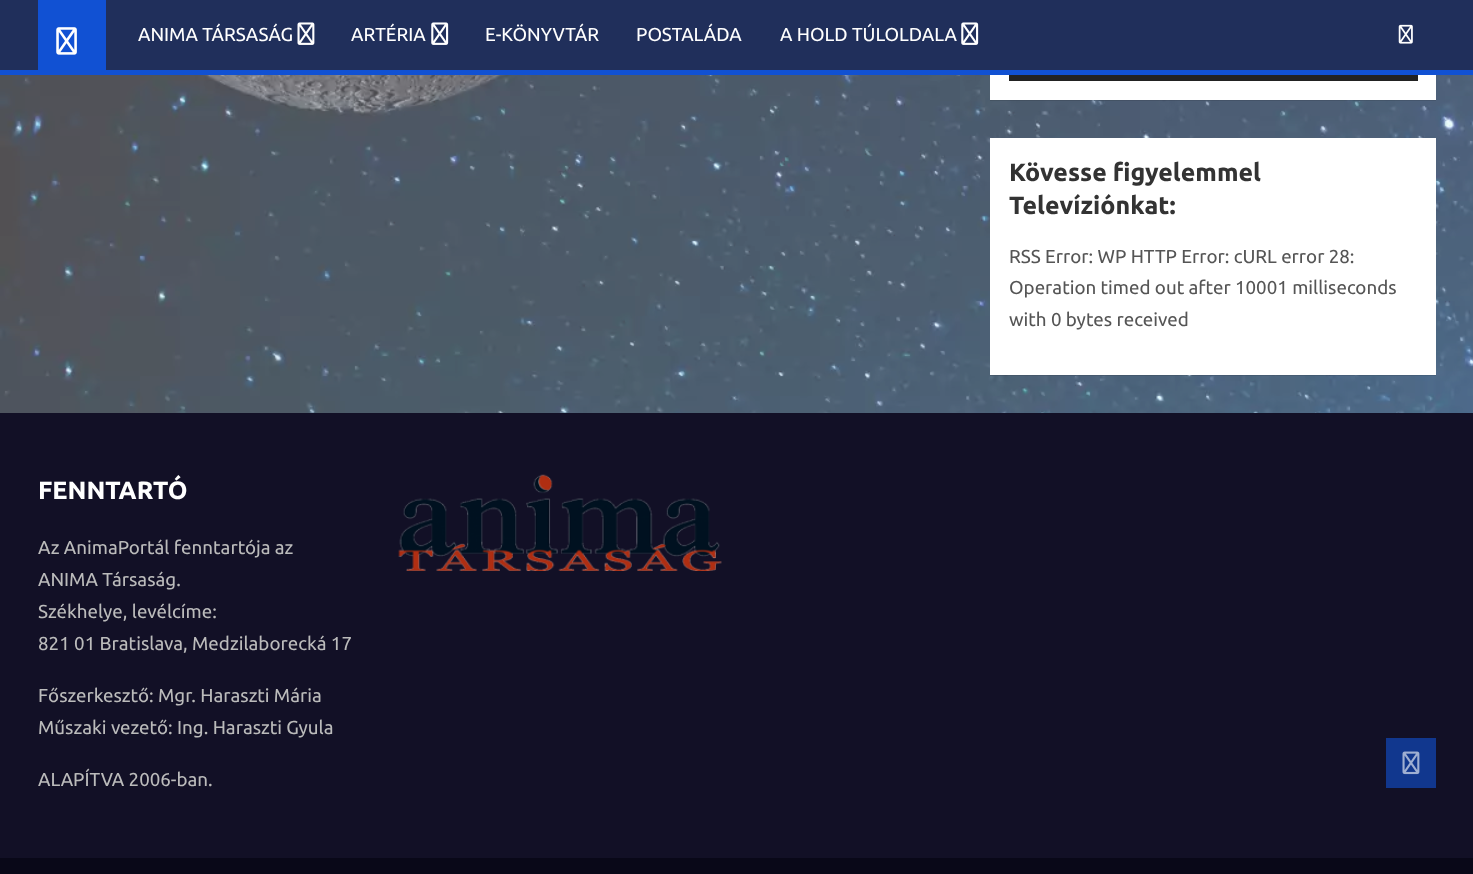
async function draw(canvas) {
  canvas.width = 1473;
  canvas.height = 874;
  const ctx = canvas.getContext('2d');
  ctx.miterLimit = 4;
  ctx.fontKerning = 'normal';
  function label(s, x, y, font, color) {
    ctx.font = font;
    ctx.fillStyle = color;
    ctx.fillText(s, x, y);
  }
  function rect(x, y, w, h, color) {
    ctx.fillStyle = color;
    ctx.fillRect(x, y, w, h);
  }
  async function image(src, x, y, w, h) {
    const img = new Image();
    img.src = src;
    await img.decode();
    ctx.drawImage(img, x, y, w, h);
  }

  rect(0, 0, 1473, 874, '#fff');
  await image('assets/img1.png', 0, 75, 1473, 338);
  ctx.fillStyle = '#0000001a';
  ctx.filter = 'blur(0.5px)';
  ctx.beginPath();
  ctx.rect(990, -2, 446, 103);
  ctx.fill();
  ctx.filter = 'none';
  rect(0, 0, 1473, 70, '#202f5b');
  rect(0, 70, 1473, 5, '#1151d3');
  rect(38, 0, 68, 70, '#1151d3');
  await image('assets/img2.png', 56, 27, 21, 28);
  label('ANIMA TÁRSASÁG', 138, 41, '18.75px Ubuntu', '#fff');
  await image('assets/img3.png', 297, 22, 18, 23);
  label('ARTÉRIA', 351, 41, '18.75px Ubuntu', '#fff');
  await image('assets/img4.png', 431, 22, 18, 23);
  label('E-KÖNYVTÁR', 485, 41, '18.75px Ubuntu', '#fff');
  label('POSTALÁDA', 636, 41, '18.75px Ubuntu', '#fff');
  label('A HOLD TÚLOLDALA', 780, 41, '18.75px Ubuntu', '#fff');
  await image('assets/img4.png', 961, 22, 18, 23);
  await image('assets/img5.png', 1398, 24, 15, 20);
  rect(990, 75, 446, 25, '#fff');
  rect(1009, 75, 409, 6, '#222');
  ctx.fillStyle = '#0000001a';
  ctx.filter = 'blur(0.5px)';
  ctx.beginPath();
  ctx.rect(990, 139, 446, 237);
  ctx.fill();
  ctx.filter = 'none';
  rect(990, 138, 446, 237, '#fff');
  label('Kövesse figyelemmel', 1009, 181, 'bold 25px Ubuntu', '#333');
  label('Televíziónkat:', 1009, 214, 'bold 25px Ubuntu', '#333');
  label('RSS Error: WP HTTP Error: cURL error 28:', 1009, 263, '18.75px Ubuntu', '#555');
  label('Operation timed out after 10001 milliseconds', 1009, 294, '18.75px Ubuntu', '#555');
  label('with 0 bytes received', 1009, 326, '18.75px Ubuntu', '#555');
  rect(0, 413, 1473, 445, '#121026');
  label('FENNTARTÓ', 38, 499, 'bold 25px Ubuntu', '#fff');
  label('Az AnimaPortál fenntartója az', 38, 554, '18.75px Ubuntu', '#bbb');
  label('ANIMA Társaság.', 38, 586, '18.75px Ubuntu', '#bbb');
  label('Székhelye, levélcíme:', 38, 618, '18.75px Ubuntu', '#bbb');
  label('821 01 Bratislava, Medzilaborecká 17', 38, 650, '18.75px Ubuntu', '#bbb');
  label('Főszerkesztő: Mgr. Haraszti Mária', 38, 702, '18.75px Ubuntu', '#bbb');
  label('Műszaki vezető: Ing. Haraszti Gyula', 38, 734, '18.75px Ubuntu', '#bbb');
  label('ALAPÍTVA 2006-ban.', 38, 786, '18.75px Ubuntu', '#bbb');
  await image('assets/img6.png', 398, 474, 324, 97);
  rect(0, 858, 1473, 16, '#090818');
  rect(1386, 738, 50, 50, '#11378e');
  await image('assets/img7.png', 1402, 751, 18, 24);
}

draw(document.querySelector('canvas'));
